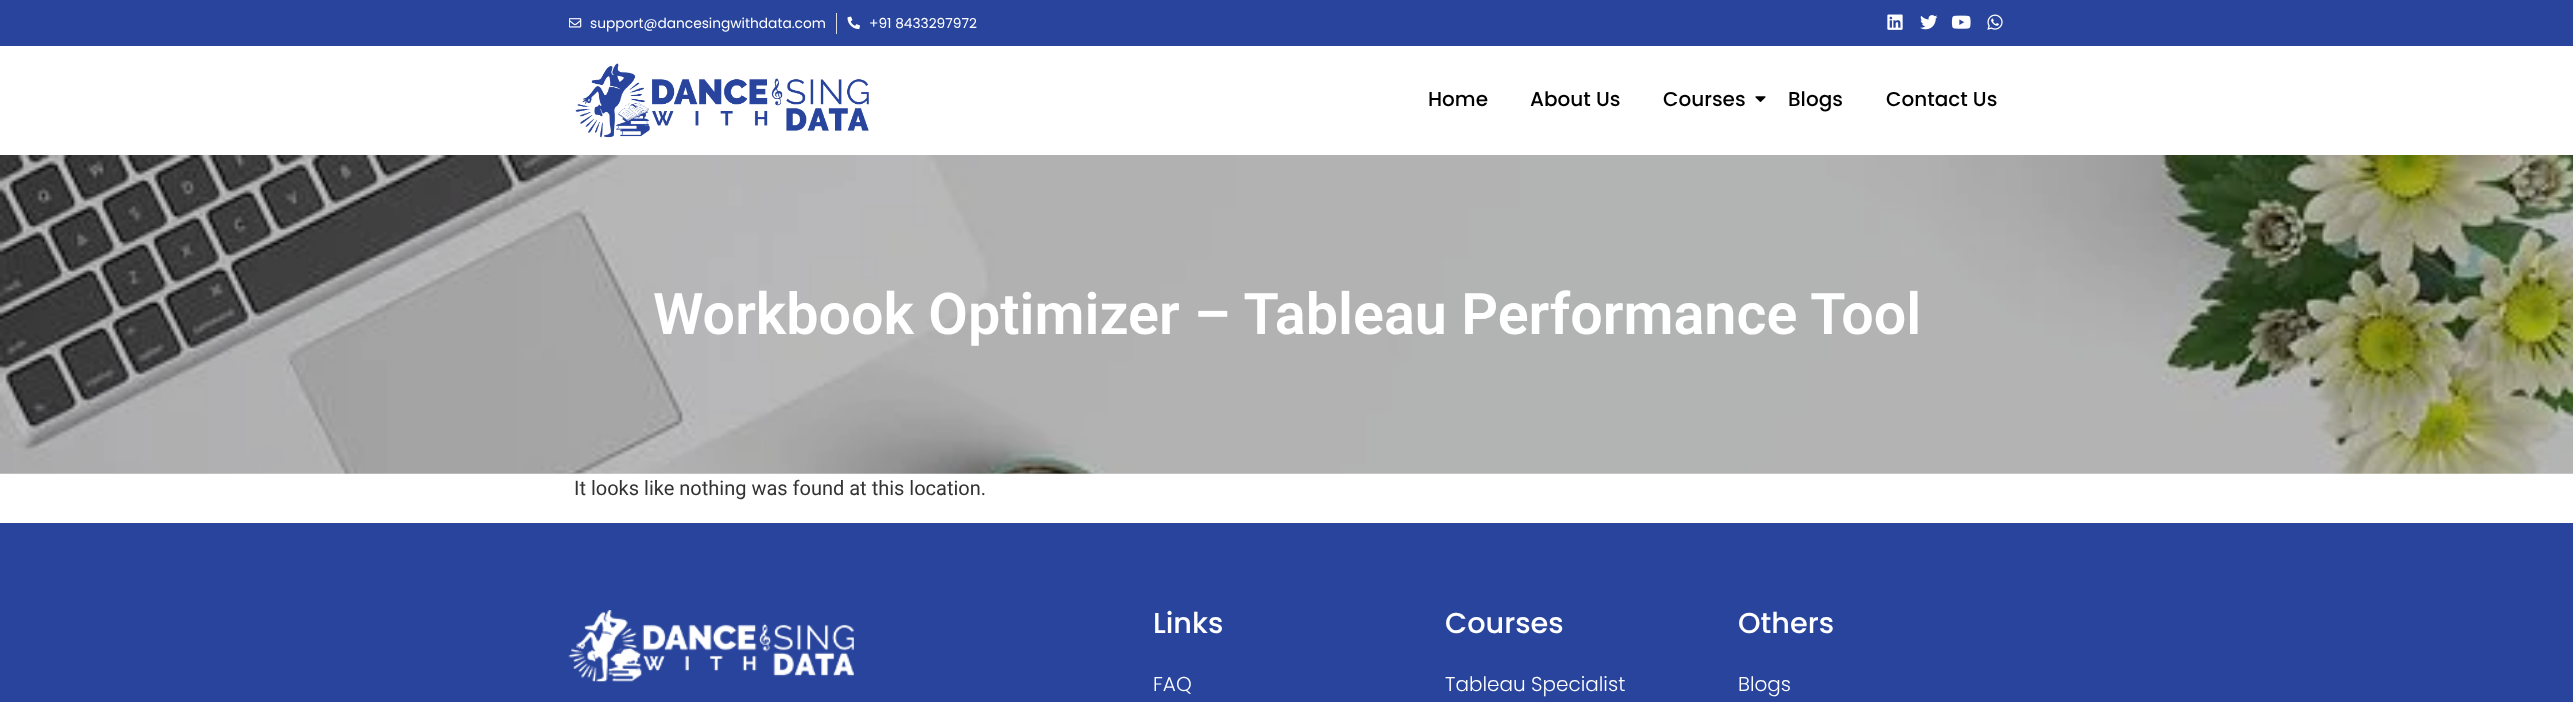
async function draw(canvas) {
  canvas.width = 2573;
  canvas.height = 702;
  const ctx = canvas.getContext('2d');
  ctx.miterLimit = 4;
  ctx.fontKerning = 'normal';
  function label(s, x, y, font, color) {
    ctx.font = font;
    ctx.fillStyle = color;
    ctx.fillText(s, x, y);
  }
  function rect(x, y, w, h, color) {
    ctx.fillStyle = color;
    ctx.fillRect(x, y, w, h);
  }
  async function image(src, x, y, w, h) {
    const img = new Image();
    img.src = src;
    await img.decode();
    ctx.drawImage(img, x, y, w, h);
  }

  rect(0, 0, 2573, 702, '#fff');
  rect(0, 0, 2573, 46, '#28449c');
  await image('assets/img1.png', 569, 18, 13, 10);
  label('support@dancesingwithdata.com', 590, 28, '13.75px Poppins', '#fff');
  rect(836, 13, 1, 21, '#ddd');
  await image('assets/img2.png', 847, 16, 13, 14);
  label('+91 8433297972', 869, 28, '13.75px Poppins', '#fff');
  await image('assets/img3.png', 1887, 14, 16, 16);
  await image('assets/img4.png', 1920, 15, 18, 15);
  await image('assets/img5.png', 1951, 15, 20, 14);
  await image('assets/img6.png', 1987, 14, 16, 16);
  await image('assets/img7.png', 575, 63, 294, 75);
  label('Home', 1428, 106, '500 20px Poppins', '#000');
  label('About Us', 1530, 106, '500 20px Poppins', '#000');
  label('Courses', 1663, 106, '500 20px Poppins', '#000');
  await image('assets/img8.png', 1755, 96, 11, 6);
  label('Blogs', 1788, 106, '500 20px Poppins', '#000');
  label('Contact Us', 1886, 106, '500 20px Poppins', '#000');
  await image('assets/img9.png', 0, 155, 2573, 319);
  label('Workbook Optimizer – Tableau Performance Tool', 653, 334, '600 57.5px Roboto', '#fff');
  label('It looks like nothing was found at this location.', 574, 495, '20px Roboto', '#333');
  rect(0, 523, 2573, 179, '#28449c');
  await image('assets/img10.png', 568, 610, 286, 72);
  label('Links', 1153, 633, '500 28.75px Poppins', '#fff');
  label('FAQ', 1153, 691, '300 20px Poppins', '#fff');
  label('Courses', 1445, 633, '500 28.75px Poppins', '#fff');
  label('Tableau Specialist', 1445, 691, '300 20px Poppins', '#fff');
  label('Others', 1738, 633, '500 28.75px Poppins', '#fff');
  label('Blogs', 1738, 691, '300 20px Poppins', '#fff');
}

draw(document.querySelector('canvas'));
